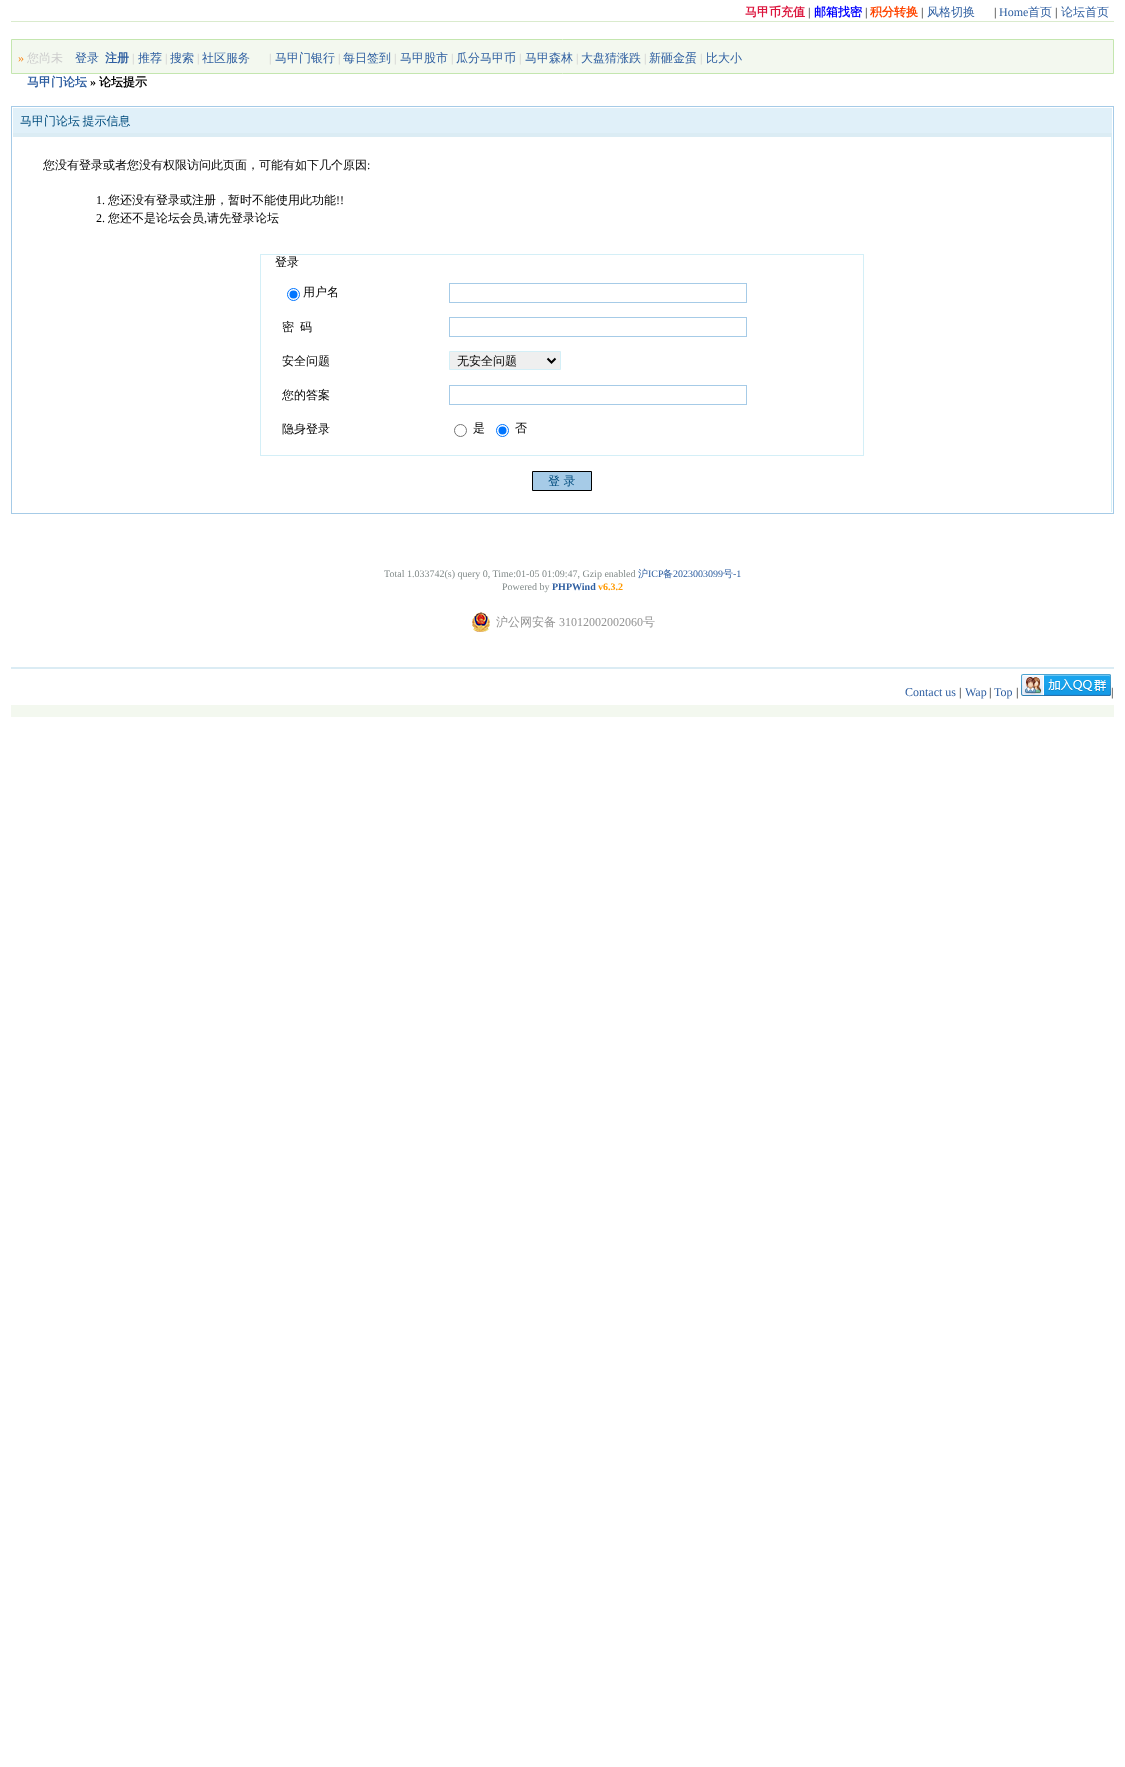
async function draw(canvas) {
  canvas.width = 1125;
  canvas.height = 1767;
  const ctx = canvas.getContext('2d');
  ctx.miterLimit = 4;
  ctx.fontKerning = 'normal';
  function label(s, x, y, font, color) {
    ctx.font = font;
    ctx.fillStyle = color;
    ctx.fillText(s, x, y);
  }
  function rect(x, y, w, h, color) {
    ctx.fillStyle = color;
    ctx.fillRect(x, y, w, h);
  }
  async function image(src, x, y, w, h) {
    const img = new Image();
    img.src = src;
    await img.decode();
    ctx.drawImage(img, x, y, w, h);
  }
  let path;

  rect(0, 0, 1125, 1767, '#fff');
  rect(11, 21, 1103, 1, '#daebcd');
  label('马甲币充值', 745, 16, 'bold 12px WenQuanYi Zen Hei', '#dc143c');
  label('|', 808, 16, '12px Liberation Serif', '#000');
  label('邮箱找密', 814, 16, 'bold 12px WenQuanYi Zen Hei', '#00f');
  label('|', 865, 16, '12px Liberation Serif', '#000');
  label('积分转换', 870, 16, 'bold 12px WenQuanYi Zen Hei', '#ff4500');
  label('|', 921, 16, '12px Liberation Serif', '#000');
  label('风格切换', 927, 16, '500 12px WenQuanYi Zen Hei', '#2f5fa1');
  label('|', 994, 16, '12px Liberation Serif', '#000');
  label('Home', 999, 16, '12px Liberation Serif', '#2f5fa1');
  label('首页', 1028, 16, '500 12px WenQuanYi Zen Hei', '#2f5fa1');
  label('|', 1055, 16, '12px Liberation Serif', '#000');
  label('论坛首页', 1061, 16, '500 12px WenQuanYi Zen Hei', '#2f5fa1');
  ctx.fillStyle = '#f3f8ef';
  ctx.beginPath();
  ctx.rect(11.5, 39.5, 1102, 34);
  ctx.fill();
  ctx.strokeStyle = '#c4e6af';
  ctx.stroke();
  label('»', 18, 62, '12px Liberation Serif', '#fa891b');
  label('您尚未', 27, 62, '500 12px WenQuanYi Zen Hei', '#ccc');
  label('登录', 75, 62, '500 12px WenQuanYi Zen Hei', '#2f5fa1');
  label('注册', 105, 62, 'bold 12px WenQuanYi Zen Hei', '#2f5fa1');
  label('|', 132, 62, '12px Liberation Serif', '#ccc');
  label('推荐', 138, 62, '500 12px WenQuanYi Zen Hei', '#2f5fa1');
  label('|', 165, 62, '12px Liberation Serif', '#ccc');
  label('搜索', 170, 62, '500 12px WenQuanYi Zen Hei', '#2f5fa1');
  label('|', 197, 62, '12px Liberation Serif', '#ccc');
  label('社区服务', 202, 62, '500 12px WenQuanYi Zen Hei', '#2f5fa1');
  label('|', 269, 62, '12px Liberation Serif', '#ccc');
  label('马甲门银行', 275, 62, '500 12px WenQuanYi Zen Hei', '#2f5fa1');
  label('|', 338, 62, '12px Liberation Serif', '#ccc');
  label('每日签到', 343, 62, '500 12px WenQuanYi Zen Hei', '#2f5fa1');
  label('|', 394, 62, '12px Liberation Serif', '#ccc');
  label('马甲股市', 400, 62, '500 12px WenQuanYi Zen Hei', '#2f5fa1');
  label('|', 451, 62, '12px Liberation Serif', '#ccc');
  label('瓜分马甲币', 456, 62, '500 12px WenQuanYi Zen Hei', '#2f5fa1');
  label('|', 519, 62, '12px Liberation Serif', '#ccc');
  label('马甲森林', 525, 62, '500 12px WenQuanYi Zen Hei', '#2f5fa1');
  label('|', 576, 62, '12px Liberation Serif', '#ccc');
  label('大盘猜涨跌', 581, 62, '500 12px WenQuanYi Zen Hei', '#2f5fa1');
  label('|', 644, 62, '12px Liberation Serif', '#ccc');
  label('新砸金蛋', 649, 62, '500 12px WenQuanYi Zen Hei', '#2f5fa1');
  label('|', 700, 62, '12px Liberation Serif', '#ccc');
  label('比大小', 706, 62, '500 12px WenQuanYi Zen Hei', '#2f5fa1');
  label('马甲门论坛', 27, 86, 'bold 12px WenQuanYi Zen Hei', '#2f5fa1');
  label('»', 90, 86, 'bold 12px Liberation Serif', '#000');
  label('论坛提示', 99, 86, 'bold 12px WenQuanYi Zen Hei', '#000');
  ctx.strokeStyle = '#a6cbe7';
  ctx.strokeRect(11.5, 106.5, 1102, 407);
  rect(13, 108, 1099, 25, '#e0f0f9');
  rect(13, 133, 1099, 4, '#dbecf4');
  ctx.wordSpacing = '-1px';
  label('马甲门论坛 提示信息', 20, 125, '500 12px WenQuanYi Zen Hei', '#004c7d');
  rect(1111, 137, 1, 375, '#d4eff7');
  ctx.wordSpacing = '0px';
  label('您没有登录或者您没有权限访问此页面，可能有如下几个原因', 43, 169, '500 12px WenQuanYi Zen Hei', '#000');
  label(':', 367, 169, '12px Liberation Serif', '#000');
  label('1.', 96, 204, '12px Liberation Serif', '#000');
  label('您还没有登录或注册，暂时不能使用此功能', 108, 204, '500 12px WenQuanYi Zen Hei', '#000');
  label('!!', 336, 204, '12px Liberation Serif', '#000');
  label('2.', 96, 222, '12px Liberation Serif', '#000');
  label('您还不是论坛会员', 108, 222, '500 12px WenQuanYi Zen Hei', '#000');
  label(',', 204, 222, '12px Liberation Serif', '#000');
  label('请先登录论坛', 207, 222, '500 12px WenQuanYi Zen Hei', '#000');
  ctx.strokeStyle = '#d4eff7';
  ctx.strokeRect(260.5, 254.5, 603, 201);
  label('登录', 275, 266, '500 12px WenQuanYi Zen Hei', '#000');
  ctx.beginPath();
  ctx.arc(293.5, 294.5, 6, 0, 2 * Math.PI);
  ctx.strokeStyle = '#0075ff';
  ctx.stroke();
  ctx.fillStyle = '#0075ff';
  ctx.beginPath();
  ctx.arc(293.5, 294.5, 4, 0, 2 * Math.PI);
  ctx.fill();
  label('用户名', 303, 296, '500 12px WenQuanYi Zen Hei', '#000');
  ctx.strokeStyle = '#a6cbe7';
  ctx.strokeRect(449.5, 283.5, 297, 19);
  label('密', 282, 331, '500 12px WenQuanYi Zen Hei', '#000');
  label('码', 300, 331, '500 12px WenQuanYi Zen Hei', '#000');
  ctx.strokeRect(449.5, 317.5, 297, 19);
  label('安全问题', 282, 365, '500 12px WenQuanYi Zen Hei', '#000');
  ctx.fillStyle = '#efefef';
  ctx.beginPath();
  ctx.rect(449.5, 351.5, 111, 18);
  ctx.fill();
  ctx.strokeStyle = '#d4eff7';
  ctx.stroke();
  path = new Path2D('M547.5 358.5L551.5 362.5L555.5 358.5');
  ctx.strokeStyle = '#000';
  ctx.lineWidth = 2;
  ctx.stroke(path);
  label('无安全问题', 457, 365, '500 12px WenQuanYi Zen Hei', '#000');
  label('您的答案', 282, 399, '500 12px WenQuanYi Zen Hei', '#000');
  ctx.strokeStyle = '#a6cbe7';
  ctx.lineWidth = 1;
  ctx.strokeRect(449.5, 385.5, 297, 19);
  label('隐身登录', 282, 433, '500 12px WenQuanYi Zen Hei', '#000');
  ctx.beginPath();
  ctx.arc(460.5, 430.5, 6, 0, 2 * Math.PI);
  ctx.strokeStyle = '#767676';
  ctx.stroke();
  label('是', 473, 432, '500 12px WenQuanYi Zen Hei', '#000');
  ctx.beginPath();
  ctx.arc(502.5, 430.5, 6, 0, 2 * Math.PI);
  ctx.strokeStyle = '#0075ff';
  ctx.stroke();
  ctx.fillStyle = '#0075ff';
  ctx.beginPath();
  ctx.arc(502.5, 430.5, 4, 0, 2 * Math.PI);
  ctx.fill();
  label('否', 515, 432, '500 12px WenQuanYi Zen Hei', '#000');
  ctx.fillStyle = '#a6cbe7';
  ctx.beginPath();
  ctx.rect(532.5, 471.5, 59, 19);
  ctx.fill();
  ctx.strokeStyle = '#000';
  ctx.stroke();
  label('登 录', 548, 485, '500 12px WenQuanYi Zen Hei', '#004c7d');
  label('Total 1.033742(s) query 0, Time:01-05 01:09:47, Gzip enabled', 384, 577, '10px Liberation Serif', '#818a89');
  label('沪', 638, 577, '500 10px WenQuanYi Zen Hei', '#2f5fa1');
  label('ICP', 648, 577, '10px Liberation Serif', '#2f5fa1');
  label('备', 663, 577, '500 10px WenQuanYi Zen Hei', '#2f5fa1');
  label('2023003099', 673, 577, '10px Liberation Serif', '#2f5fa1');
  label('号', 723, 577, '500 10px WenQuanYi Zen Hei', '#2f5fa1');
  label('-1', 733, 577, '10px Liberation Serif', '#2f5fa1');
  label('Powered by', 502, 590, '10px Liberation Serif', '#818a89');
  label('PHPWind', 552, 590, 'bold 10px Liberation Serif', '#2f5fa1');
  label('v6.3.2', 598, 590, 'bold 10px Liberation Serif', '#f90');
  await image('assets/img1.png', 472, 612, 18, 20);
  label('沪公网安备', 496, 626, '500 12px WenQuanYi Zen Hei', '#939393');
  label('31012002002060', 559, 626, '12px Liberation Serif', '#939393');
  label('号', 643, 626, '500 12px WenQuanYi Zen Hei', '#939393');
  rect(11, 667, 1103, 2, '#dbecf4');
  rect(11, 705, 1103, 12, '#f3f8ef');
  label('Contact us', 905, 696, '12px Liberation Serif', '#2f5fa1');
  label('|', 959, 696, '12px Liberation Serif', '#000');
  label('Wap', 965, 696, '12px Liberation Serif', '#2f5fa1');
  label('|', 989, 696, '12px Liberation Serif', '#000');
  label('Top', 994, 696, '12px Liberation Serif', '#2f5fa1');
  label('|', 1016, 696, '12px Liberation Serif', '#000');
  await image('assets/img2.png', 1021, 674, 90, 22);
  label('|', 1111, 696, '12px Liberation Serif', '#000');
}

draw(document.querySelector('canvas'));
